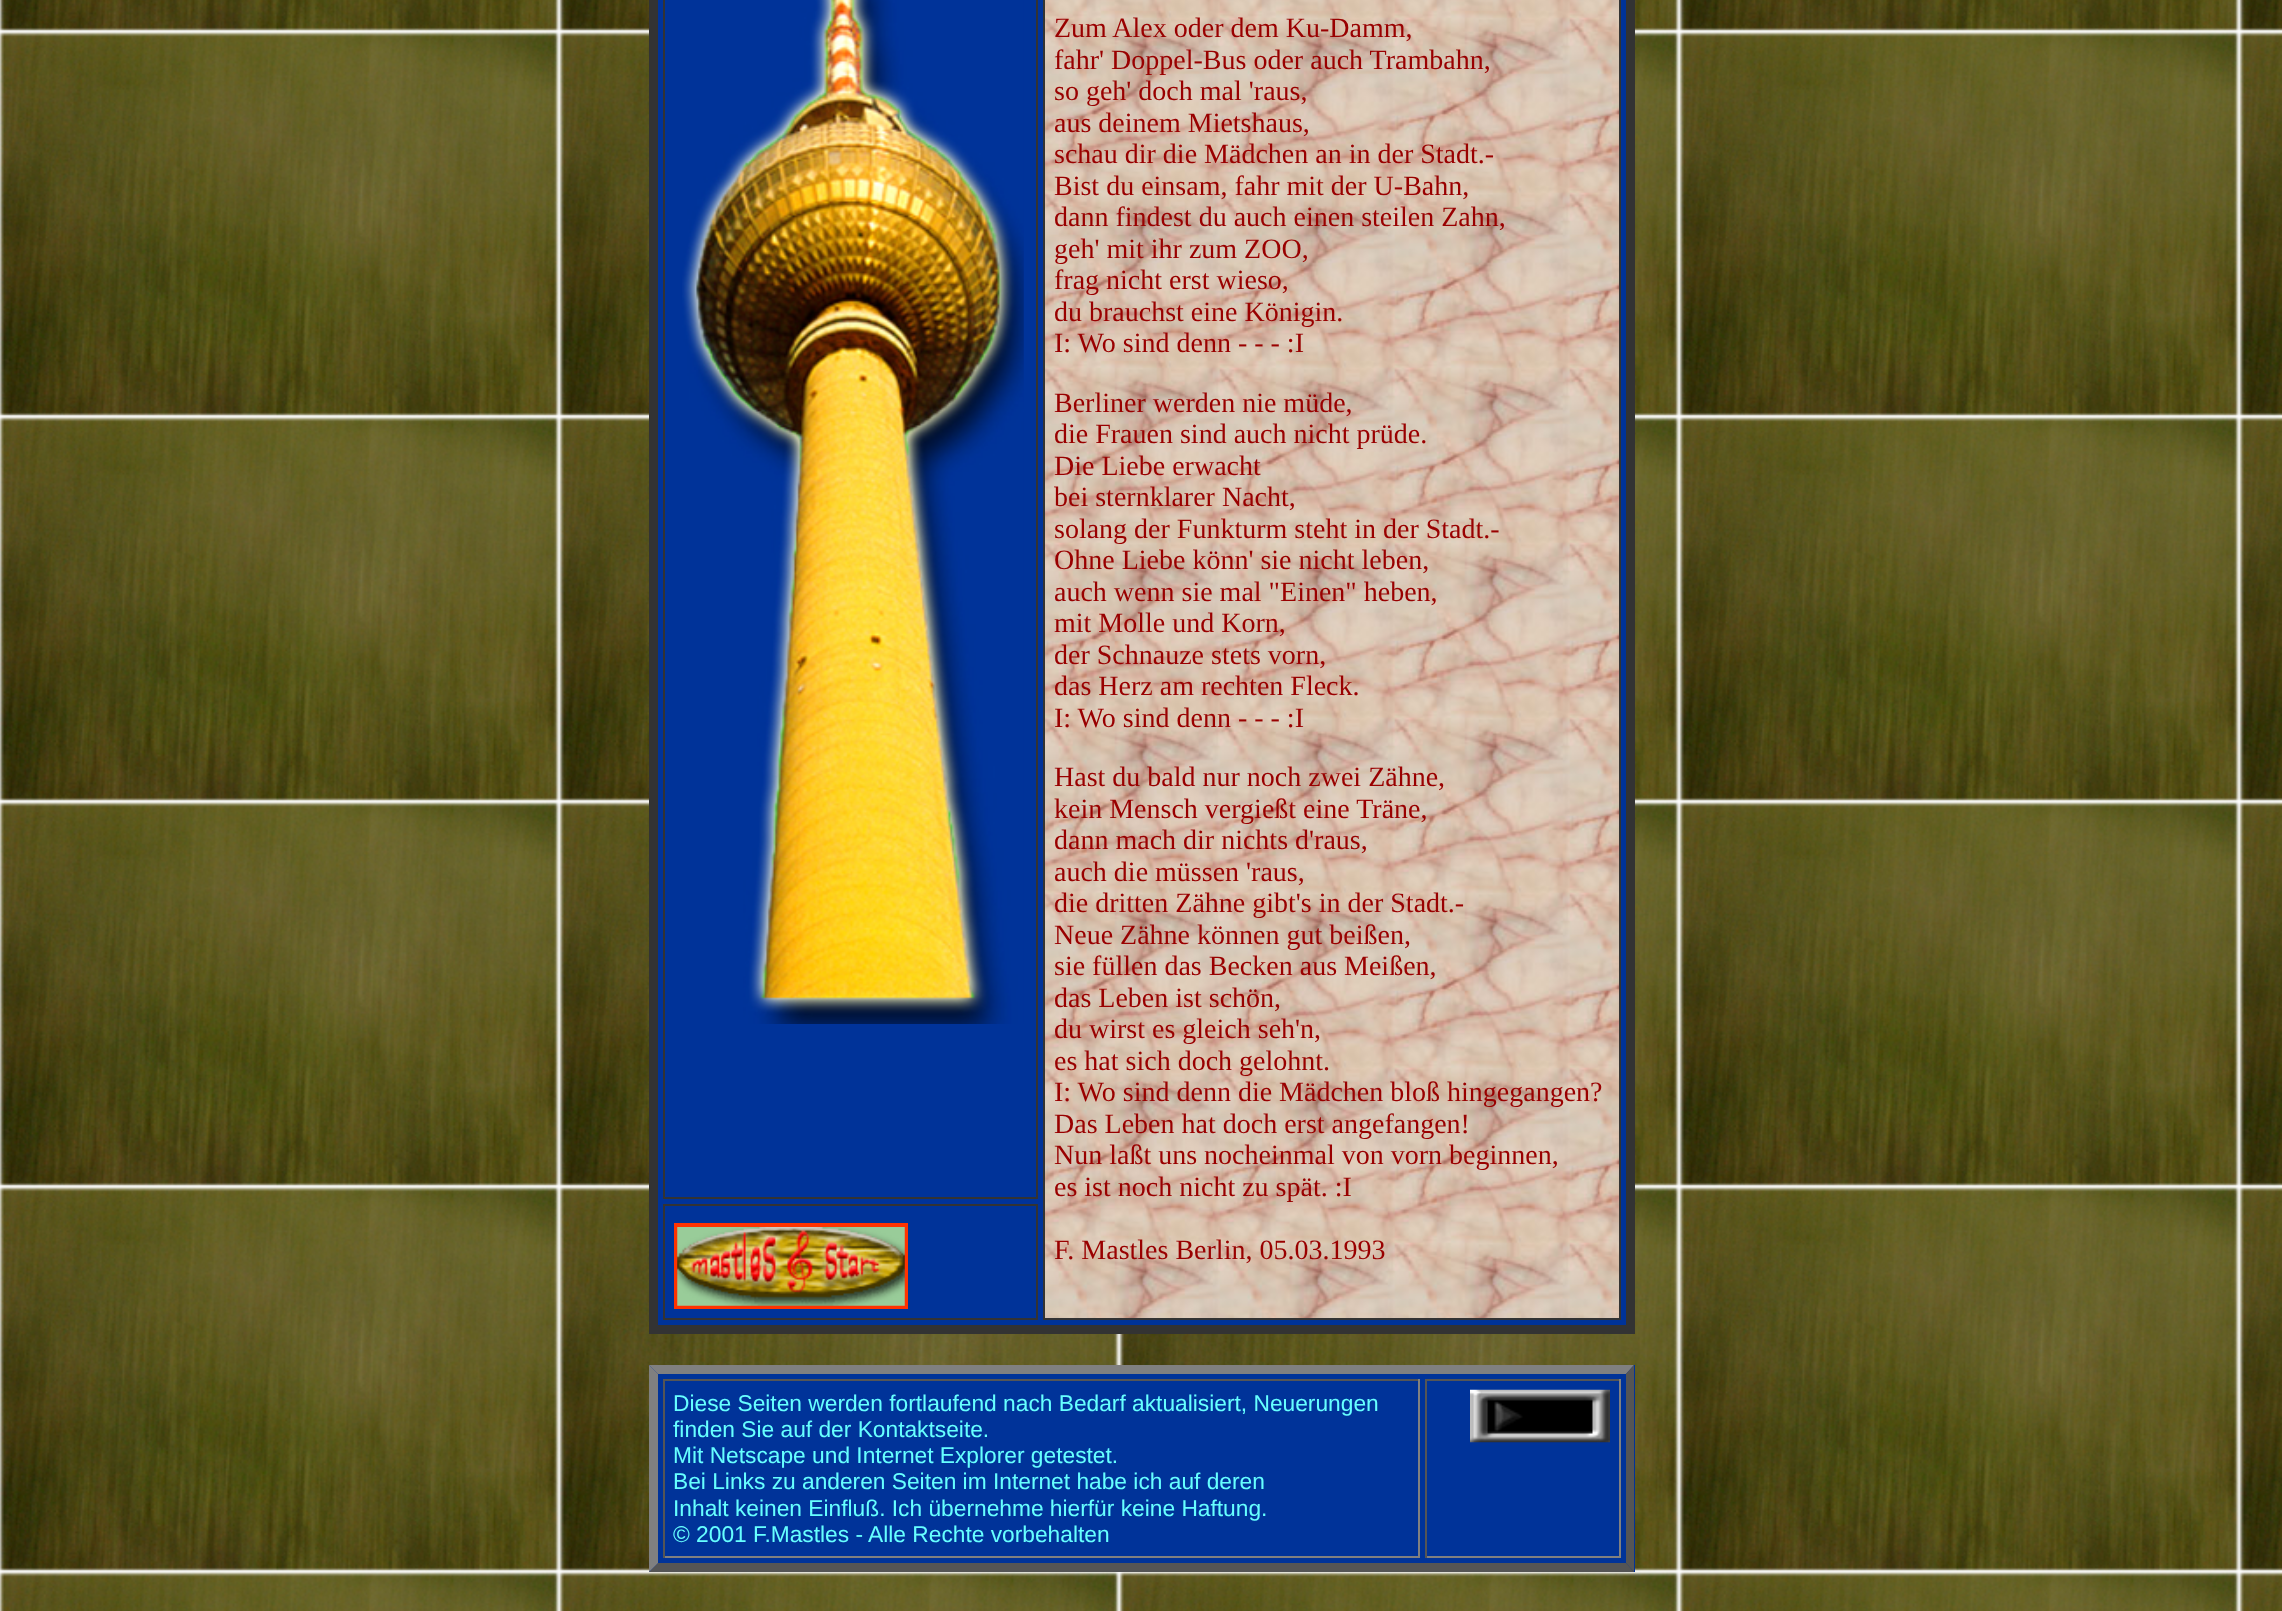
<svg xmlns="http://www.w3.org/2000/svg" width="2282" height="1611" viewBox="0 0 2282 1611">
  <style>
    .t1 { font: 28px Liberation Serif; fill: #900; }
    .t2 { font: 22.75px Liberation Sans; fill: #6ff; }
  </style>
  <rect width="100%" height="100%" fill="#fff"/>
  <image x="0" y="0" width="2282" height="1611" href="images/1.png"/>
  <rect x="653.5" y="-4.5" width="977" height="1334" fill="#039" stroke="#333" stroke-width="9"/>
  <rect x="664" y="1205" width="373" height="114" fill="none" stroke="#333" stroke-width="2"/>
  <rect x="676" y="1225" width="230" height="82" fill="none" stroke="#f30" stroke-width="4"/>
  <image x="677" y="1227" width="228" height="79" href="images/2.png"/>
  <rect x="664" y="-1" width="373" height="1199" fill="none" stroke="#333" stroke-width="2"/>
  <image x="682" y="0" width="342" height="1024" href="images/3.png"/>
  <image x="1045" y="0" width="574" height="1318" href="images/4.png"/>
  <rect x="1044" y="-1" width="576" height="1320" fill="none" stroke="#333" stroke-width="2"/>
  <text x="1054" y="37" class="t1">Zum Alex oder dem Ku-Damm,</text>
  <text x="1054" y="69" class="t1">fahr' Doppel-Bus oder auch Trambahn,</text>
  <text x="1054" y="100" class="t1">so geh' doch mal 'raus,</text>
  <text x="1054" y="132" class="t1">aus deinem Mietshaus,</text>
  <text x="1054" y="163" class="t1">schau dir die Mädchen an in der Stadt.-</text>
  <text x="1054" y="195" class="t1">Bist du einsam, fahr mit der U-Bahn,</text>
  <text x="1054" y="226" class="t1">dann findest du auch einen steilen Zahn,</text>
  <text x="1054" y="258" class="t1">geh' mit ihr zum ZOO,</text>
  <text x="1054" y="289" class="t1">frag nicht erst wieso,</text>
  <text x="1054" y="321" class="t1">du brauchst eine Königin.</text>
  <text x="1054" y="352" class="t1">I: Wo sind denn - - - :I</text>
  <text x="1054" y="412" class="t1">Berliner werden nie müde,</text>
  <text x="1054" y="443" class="t1">die Frauen sind auch nicht prüde.</text>
  <text x="1054" y="475" class="t1">Die Liebe erwacht</text>
  <text x="1054" y="506" class="t1">bei sternklarer Nacht,</text>
  <text x="1054" y="538" class="t1">solang der Funkturm steht in der Stadt.-</text>
  <text x="1054" y="569" class="t1">Ohne Liebe könn' sie nicht leben,</text>
  <text x="1054" y="601" class="t1">auch wenn sie mal "Einen" heben,</text>
  <text x="1054" y="632" class="t1">mit Molle und Korn,</text>
  <text x="1054" y="664" class="t1">der Schnauze stets vorn,</text>
  <text x="1054" y="695" class="t1">das Herz am rechten Fleck.</text>
  <text x="1054" y="727" class="t1">I: Wo sind denn - - - :I</text>
  <text x="1054" y="786" class="t1">Hast du bald nur noch zwei Zähne,</text>
  <text x="1054" y="818" class="t1">kein Mensch vergießt eine Träne,</text>
  <text x="1054" y="849" class="t1">dann mach dir nichts d'raus,</text>
  <text x="1054" y="881" class="t1">auch die müssen 'raus,</text>
  <text x="1054" y="912" class="t1">die dritten Zähne gibt's in der Stadt.-</text>
  <text x="1054" y="944" class="t1">Neue Zähne können gut beißen,</text>
  <text x="1054" y="975" class="t1">sie füllen das Becken aus Meißen,</text>
  <text x="1054" y="1007" class="t1">das Leben ist schön,</text>
  <text x="1054" y="1038" class="t1">du wirst es gleich seh'n,</text>
  <text x="1054" y="1070" class="t1">es hat sich doch gelohnt.</text>
  <text x="1054" y="1101" class="t1">I: Wo sind denn die Mädchen bloß hingegangen?</text>
  <text x="1054" y="1133" class="t1">Das Leben hat doch erst angefangen!</text>
  <text x="1054" y="1164" class="t1">Nun laßt uns nocheinmal von vorn beginnen,</text>
  <text x="1054" y="1196" class="t1">es ist noch nicht zu spät. :I</text>
  <text x="1054" y="1259" class="t1">F. Mastles Berlin, 05.03.1993</text>
  <rect x="649" y="1365" width="986" height="207" fill="#039"/>
  <path d="M649 1365H1634L1626 1374H658Z" fill="#808080"/>
  <path d="M1634 1365V1572L1626 1563V1374Z" fill="#555"/>
  <path d="M1634 1572H649L658 1563H1626Z" fill="#555"/>
  <path d="M649 1572V1365L658 1374V1563Z" fill="#808080"/>
  <rect x="663" y="1379" width="756" height="2" fill="#555"/>
  <rect x="1418" y="1379" width="2" height="179" fill="#808080"/>
  <rect x="663" y="1556" width="756" height="2" fill="#808080"/>
  <rect x="663" y="1379" width="2" height="179" fill="#555"/>
  <text x="673" y="1411" class="t2">Diese Seiten werden fortlaufend nach Bedarf aktualisiert, Neuerungen</text>
  <text x="673" y="1437" class="t2">finden Sie auf der Kontaktseite.</text>
  <text x="673" y="1463" class="t2">Mit Netscape und Internet Explorer getestet.</text>
  <text x="673" y="1489" class="t2">Bei Links zu anderen Seiten im Internet habe ich auf deren</text>
  <text x="673" y="1516" class="t2">Inhalt keinen Einfluß. Ich übernehme hierfür keine Haftung.</text>
  <text x="673" y="1542" class="t2">© 2001 F.Mastles - Alle Rechte vorbehalten</text>
  <rect x="1425" y="1379" width="196" height="2" fill="#555"/>
  <rect x="1619" y="1379" width="2" height="179" fill="#808080"/>
  <rect x="1425" y="1556" width="196" height="2" fill="#808080"/>
  <rect x="1425" y="1379" width="2" height="179" fill="#555"/>
  <image x="1470" y="1389" width="140" height="54" href="images/5.png"/>
</svg>
